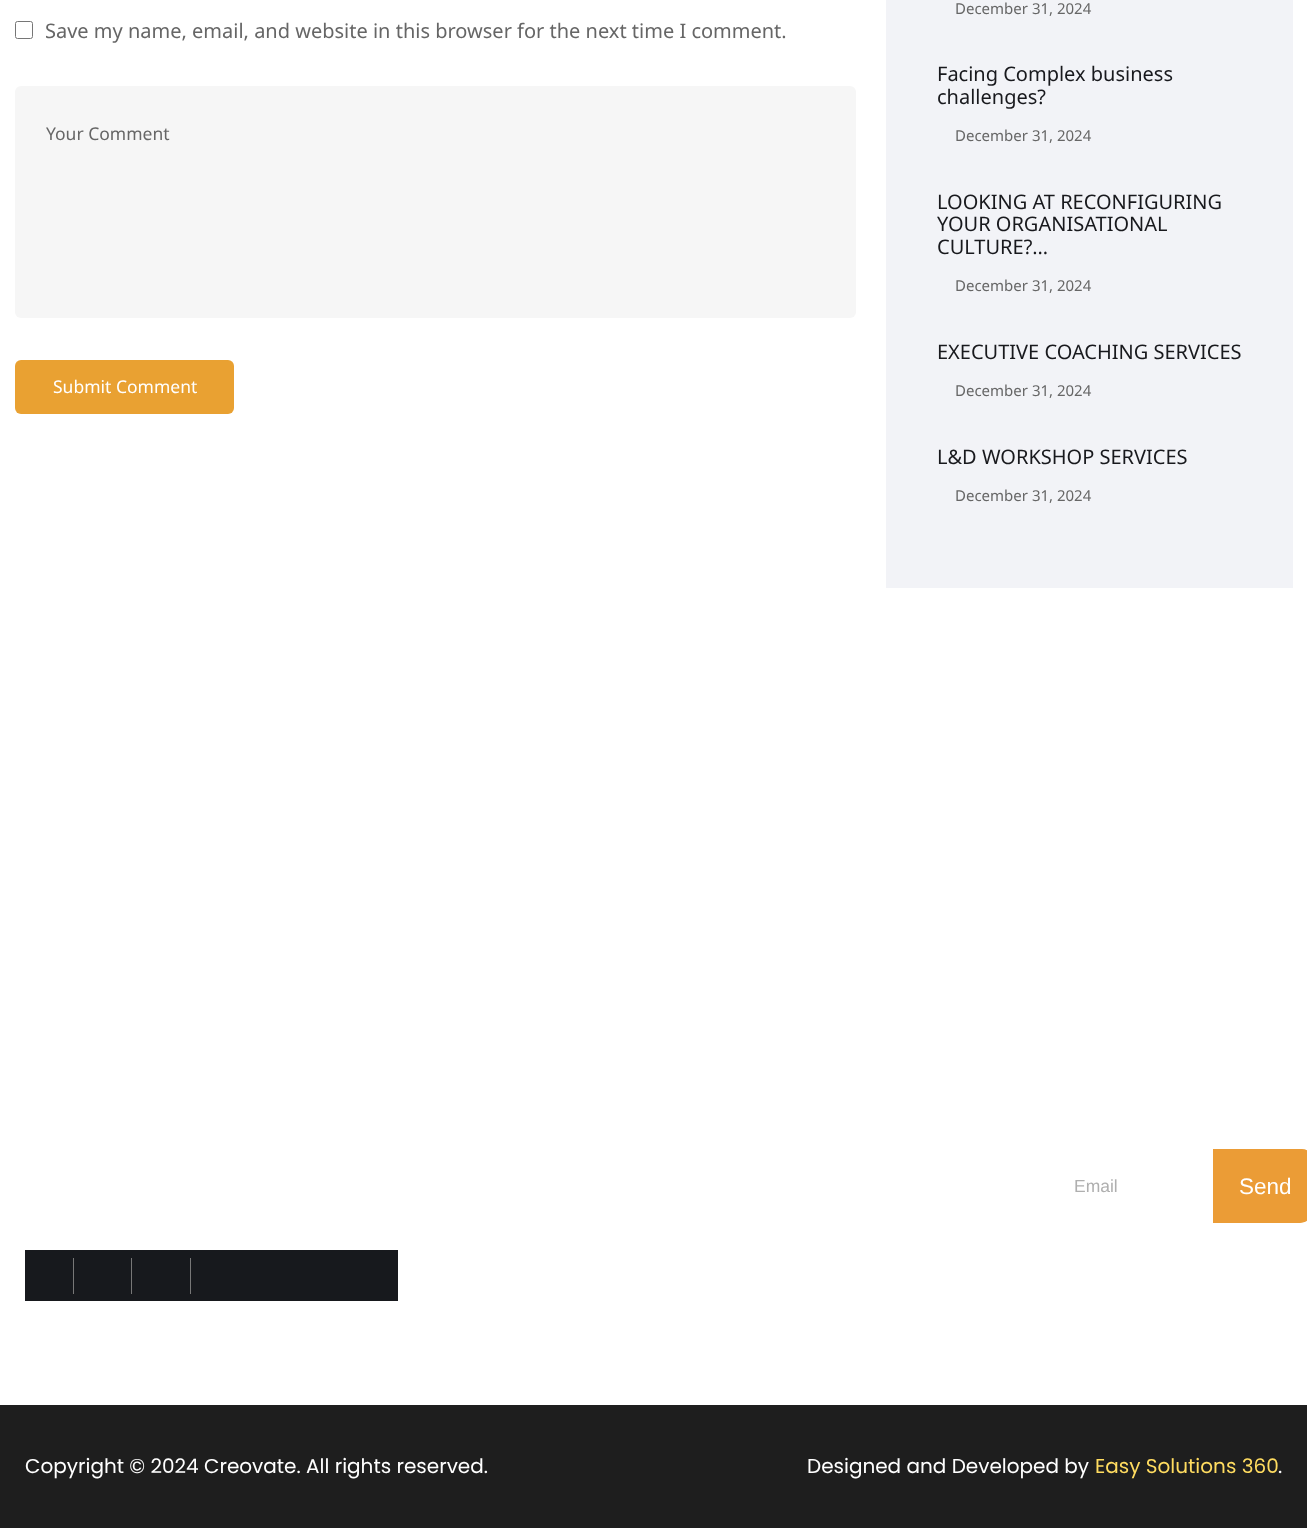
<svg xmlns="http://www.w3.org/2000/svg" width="1307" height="1528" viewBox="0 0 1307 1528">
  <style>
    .t1 { font: 20px Noto Sans; fill: #666; }
    .t2 { font: 17.5px Noto Sans; fill: #666; }
    .t3 { font: 17.5px Noto Sans; fill: #fff; }
    .t4 { font: 15px Noto Sans; fill: #666; }
    .t5 { font: 20px Noto Sans; fill: #18191d; }
    .t6 { font: 17.5px Liberation Sans; fill: #afafaf; }
    .t7 { font: 22.5px Liberation Sans; fill: #fff; }
    .t8 { font: 20px Poppins; fill: #fff; }
    .t9 { font: 20px Poppins; fill: #ffdc60; }
  </style>
  <rect width="100%" height="100%" fill="#fff"/>
  <rect x="15.5" y="21.5" width="17" height="17" rx="2" fill="none" stroke="#767676"/>
  <text x="45" y="38" class="t1">Save my name, email, and website in this browser for the next time I comment.</text>
  <rect x="15" y="86" width="841" height="232" rx="6" fill="#f6f6f6"/>
  <text x="46" y="140" class="t2">Your Comment</text>
  <rect x="15" y="360" width="219" height="54" rx="6" fill="#e9a132"/>
  <text x="53" y="393" class="t3">Submit Comment</text>
  <rect x="886" y="0" width="407" height="588" fill="#f2f3f7"/>
  <text x="955" y="14" class="t4">December 31, 2024</text>
  <text x="937" y="81" class="t5">Facing Complex business</text>
  <text x="937" y="104" class="t5">challenges?</text>
  <text x="955" y="141" class="t4">December 31, 2024</text>
  <text x="937" y="209" class="t5">LOOKING AT RECONFIGURING</text>
  <text x="937" y="231" class="t5">YOUR ORGANISATIONAL</text>
  <text x="937" y="254" class="t5">CULTURE?…</text>
  <text x="955" y="291" class="t4">December 31, 2024</text>
  <text x="937" y="359" class="t5">EXECUTIVE COACHING SERVICES</text>
  <text x="955" y="396" class="t4">December 31, 2024</text>
  <text x="937" y="464" class="t5">L&amp;D WORKSHOP SERVICES</text>
  <text x="955" y="501" class="t4">December 31, 2024</text>
  <text x="1074" y="1192" class="t6">Email</text>
  <path d="M1213 1149H1302C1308 1149 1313 1154 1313 1160V1210C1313 1217 1307 1223 1300 1223H1213Z" fill="#eb9c36"/>
  <text x="1239" y="1194" class="t7">Send</text>
  <rect x="25" y="1250" width="373" height="51" fill="#17191d"/>
  <rect x="73" y="1258" width="1" height="36" fill="#777"/>
  <rect x="131" y="1258" width="1" height="36" fill="#777"/>
  <rect x="190" y="1258" width="1" height="36" fill="#777"/>
  <rect x="0" y="1405" width="1307" height="123" fill="#1e1e1e"/>
  <text x="25" y="1473" class="t8">Copyright © 2024 Creovate. All rights reserved.</text>
  <text x="807" y="1473" class="t8">Designed and Developed by</text>
  <text x="1095" y="1473" class="t9">Easy Solutions 360</text>
  <text x="1278" y="1473" class="t8">.</text>
</svg>
